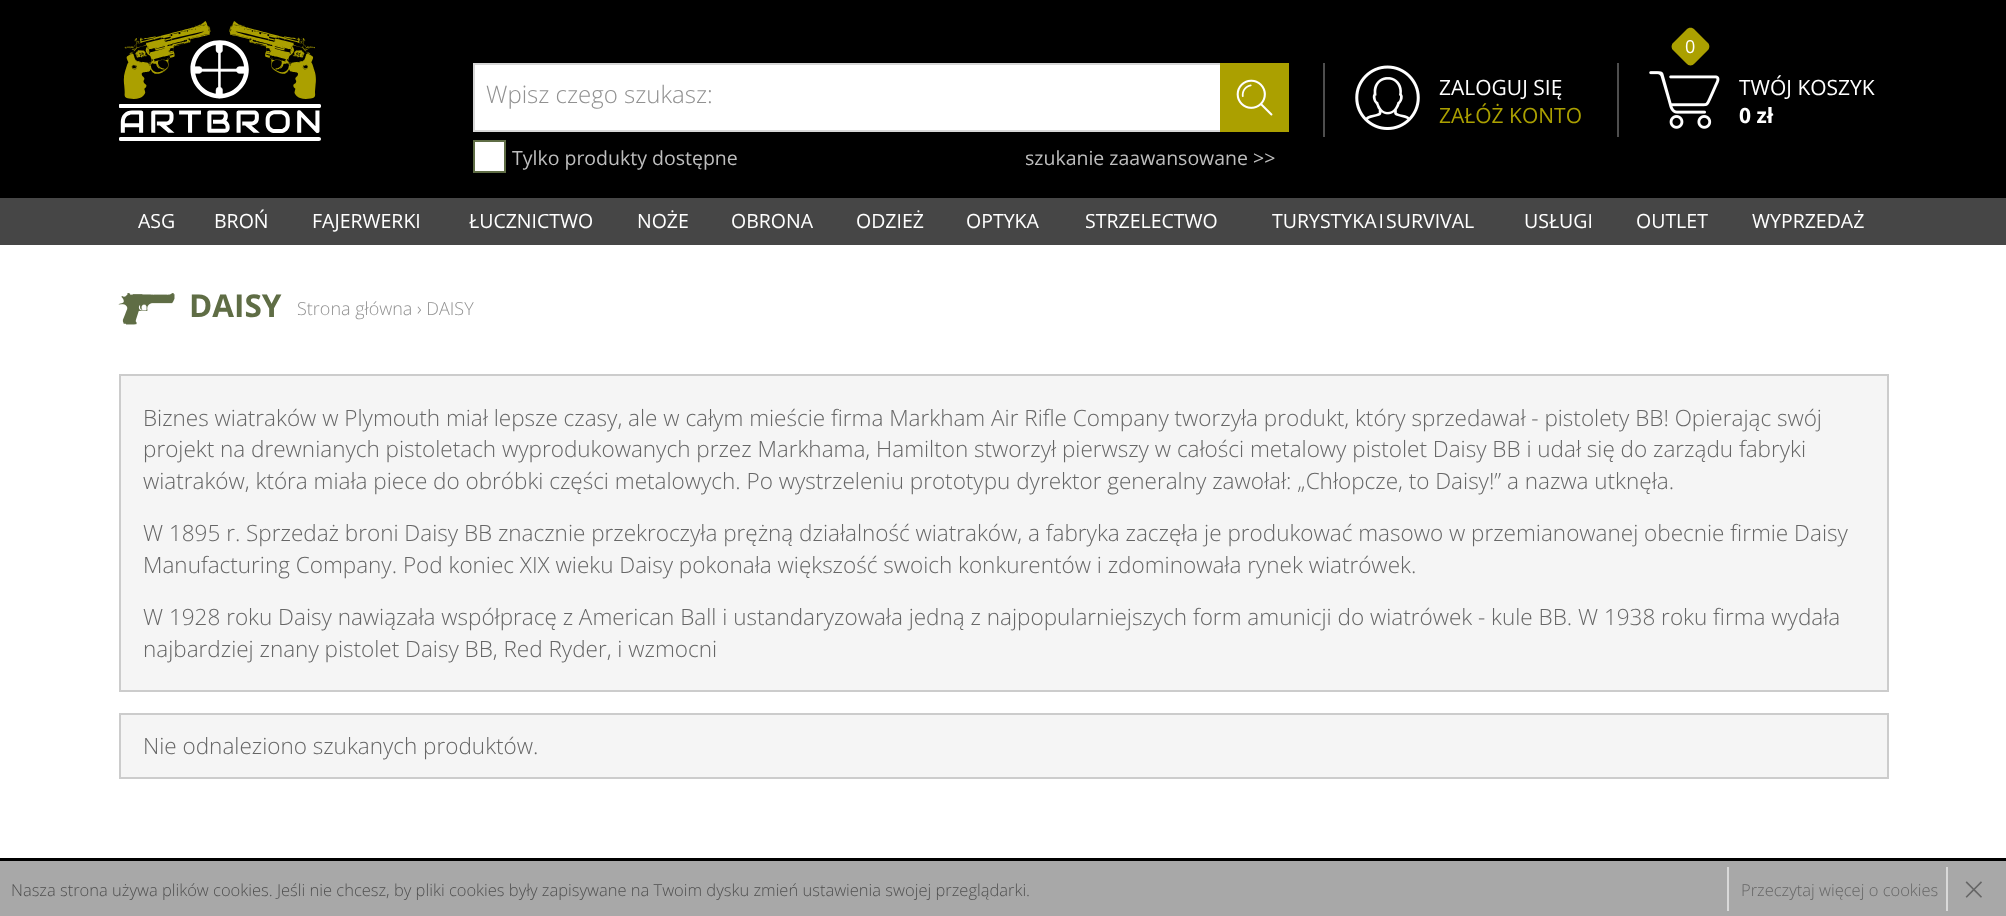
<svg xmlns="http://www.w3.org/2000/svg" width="2006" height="916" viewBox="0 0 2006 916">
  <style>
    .t1 { font: 300 24px Open Sans; fill: #919191; }
    .t2 { font: 19.5px Open Sans; fill: #bebebe; }
    .t3 { font: 21px Open Sans; fill: #fff; }
    .t4 { font: 21px Open Sans; fill: #aba000; }
    .t5 { font: 18px Open Sans; fill: #fff; }
    .t6 { font: bold 21px Open Sans; fill: #fff; }
    .t7 { font: 19.5px Open Sans; fill: #fff; }
    .t8 { font: bold 31.5px Open Sans; fill: #5f6d45; }
    .t9 { font: 300 18px Open Sans; fill: #919191; }
    .t10 { font: 300 22.5px Open Sans; fill: #666; }
    .t11 { font: 300 16.5px Open Sans; fill: #505050; }
    .t12 { font: 300 16.5px Open Sans; fill: #666; }
    .t13 { font: 300 38px Open Sans; fill: #666; }
  </style>
  <rect width="100%" height="100%" fill="#fff"/>
  <rect x="0" y="0" width="2006" height="198" fill="#000"/>
  <image x="119" y="21" width="202" height="120" href="images/1.png"/>
  <rect x="475" y="65" width="745" height="65" fill="#fff"/>
  <rect x="474" y="64" width="800" height="67" fill="none" stroke="#d7d7d7" stroke-width="2"/>
  <rect x="1221" y="64" width="67" height="67" fill="#aba000" stroke="#aba000" stroke-width="2"/>
  <image x="1236" y="79" width="37" height="37" href="images/2.png"/>
  <text x="486" y="103" class="t1">Wpisz czego szukasz:</text>
  <rect x="474" y="141" width="31" height="31" fill="#fff" stroke="#5f6d45" stroke-width="2"/>
  <text x="512" y="165" class="t2">Tylko produkty dostępne</text>
  <text x="1025" y="165" class="t2">szukanie zaawansowane &gt;&gt;</text>
  <rect x="1323" y="63" width="2" height="74" fill="#4e4e4e"/>
  <image x="1355" y="65" width="65" height="65" href="images/3.png"/>
  <text x="1439" y="95" class="t3">ZALOGUJ SIĘ</text>
  <text x="1439" y="123" class="t4">ZAŁÓŻ KONTO</text>
  <rect x="1617" y="63" width="2" height="74" fill="#4e4e4e"/>
  <image x="1649" y="71" width="71" height="58" href="images/4.png"/>
  <path d="M1694.5 29.5L1707.5 42.5C1710 44.5 1710 48.5 1707.5 50.5L1694.5 63.5C1692.5 66 1688.5 66 1686.5 63.5L1673.5 50.5C1671 48.5 1671 44.5 1673.5 42.5L1686.5 29.5C1688.5 27 1692.5 27 1694.5 29.5Z" fill="#aba000"/>
  <text x="1685" y="53" class="t5">0</text>
  <text x="1739" y="95" class="t3">TWÓJ KOSZYK</text>
  <text x="1739" y="123" class="t6">0 zł</text>
  <rect x="0" y="198" width="2006" height="47" fill="#464646"/>
  <text x="138" y="228" class="t7">ASG</text>
  <text x="214" y="228" class="t7">BROŃ</text>
  <text x="312" y="228" class="t7">FAJERWERKI</text>
  <text x="469" y="228" class="t7">ŁUCZNICTWO</text>
  <text x="637" y="228" class="t7">NOŻE</text>
  <text x="731" y="228" class="t7">OBRONA</text>
  <text x="856" y="228" class="t7">ODZIEŻ</text>
  <text x="966" y="228" class="t7">OPTYKA</text>
  <text x="1085" y="228" class="t7">STRZELECTWO</text>
  <text x="1272" y="228" word-spacing="-3" class="t7">TURYSTYKA I SURVIVAL</text>
  <text x="1524" y="228" class="t7">USŁUGI</text>
  <text x="1636" y="228" class="t7">OUTLET</text>
  <text x="1752" y="228" class="t7">WYPRZEDAŻ</text>
  <image x="118" y="293" width="57" height="32" href="images/5.png"/>
  <text x="189" y="317" class="t8">DAISY</text>
  <text x="297" y="315" class="t9">Strona główna › DAISY</text>
  <rect x="120" y="375" width="1768" height="316" fill="#f5f5f5" stroke="#ccc" stroke-width="2"/>
  <text x="143" y="426" class="t10">Biznes wiatraków w Plymouth miał lepsze czasy, ale w całym mieście firma Markham Air Rifle Company tworzyła produkt, który sprzedawał - pistolety BB! Opierając swój</text>
  <text x="143" y="457" class="t10">projekt na drewnianych pistoletach wyprodukowanych przez Markhama, Hamilton stworzył pierwszy w całości metalowy pistolet Daisy BB i udał się do zarządu fabryki</text>
  <text x="143" y="489" class="t10">wiatraków, która miała piece do obróbki części metalowych. Po wystrzeleniu prototypu dyrektor generalny zawołał: „Chłopcze, to Daisy!” a nazwa utknęła.</text>
  <text x="143" y="541" class="t10">W 1895 r. Sprzedaż broni Daisy BB znacznie przekroczyła prężną działalność wiatraków, a fabryka zaczęła je produkować masowo w przemianowanej obecnie firmie Daisy</text>
  <text x="143" y="573" class="t10">Manufacturing Company. Pod koniec XIX wieku Daisy pokonała większość swoich konkurentów i zdominowała rynek wiatrówek.</text>
  <text x="143" y="625" class="t10">W 1928 roku Daisy nawiązała współpracę z American Ball i ustandaryzowała jedną z najpopularniejszych form amunicji do wiatrówek - kule BB. W 1938 roku firma wydała</text>
  <text x="143" y="657" class="t10">najbardziej znany pistolet Daisy BB, Red Ryder, i wzmocni</text>
  <rect x="120" y="714" width="1768" height="64" fill="#f5f5f5" stroke="#ccc" stroke-width="2"/>
  <text x="143" y="754" class="t10">Nie odnaleziono szukanych produktów.</text>
  <rect x="0" y="858" width="2006" height="3" fill="#000"/>
  <rect x="0" y="861" width="2006" height="55" fill="#a8a8a8"/>
  <text x="11" y="896" class="t11">Nasza strona używa plików cookies. Jeśli nie chcesz, by pliki cookies były zapisywane na Twoim dysku zmień ustawienia swojej przeglądarki.</text>
  <rect x="1727" y="867" width="2" height="44" fill="#d9d9d9"/>
  <text x="1741" y="896" class="t12">Przeczytaj więcej o cookies</text>
  <rect x="1946" y="867" width="2" height="44" fill="#d9d9d9"/>
  <text x="1963" y="903" class="t13">×</text>
</svg>
